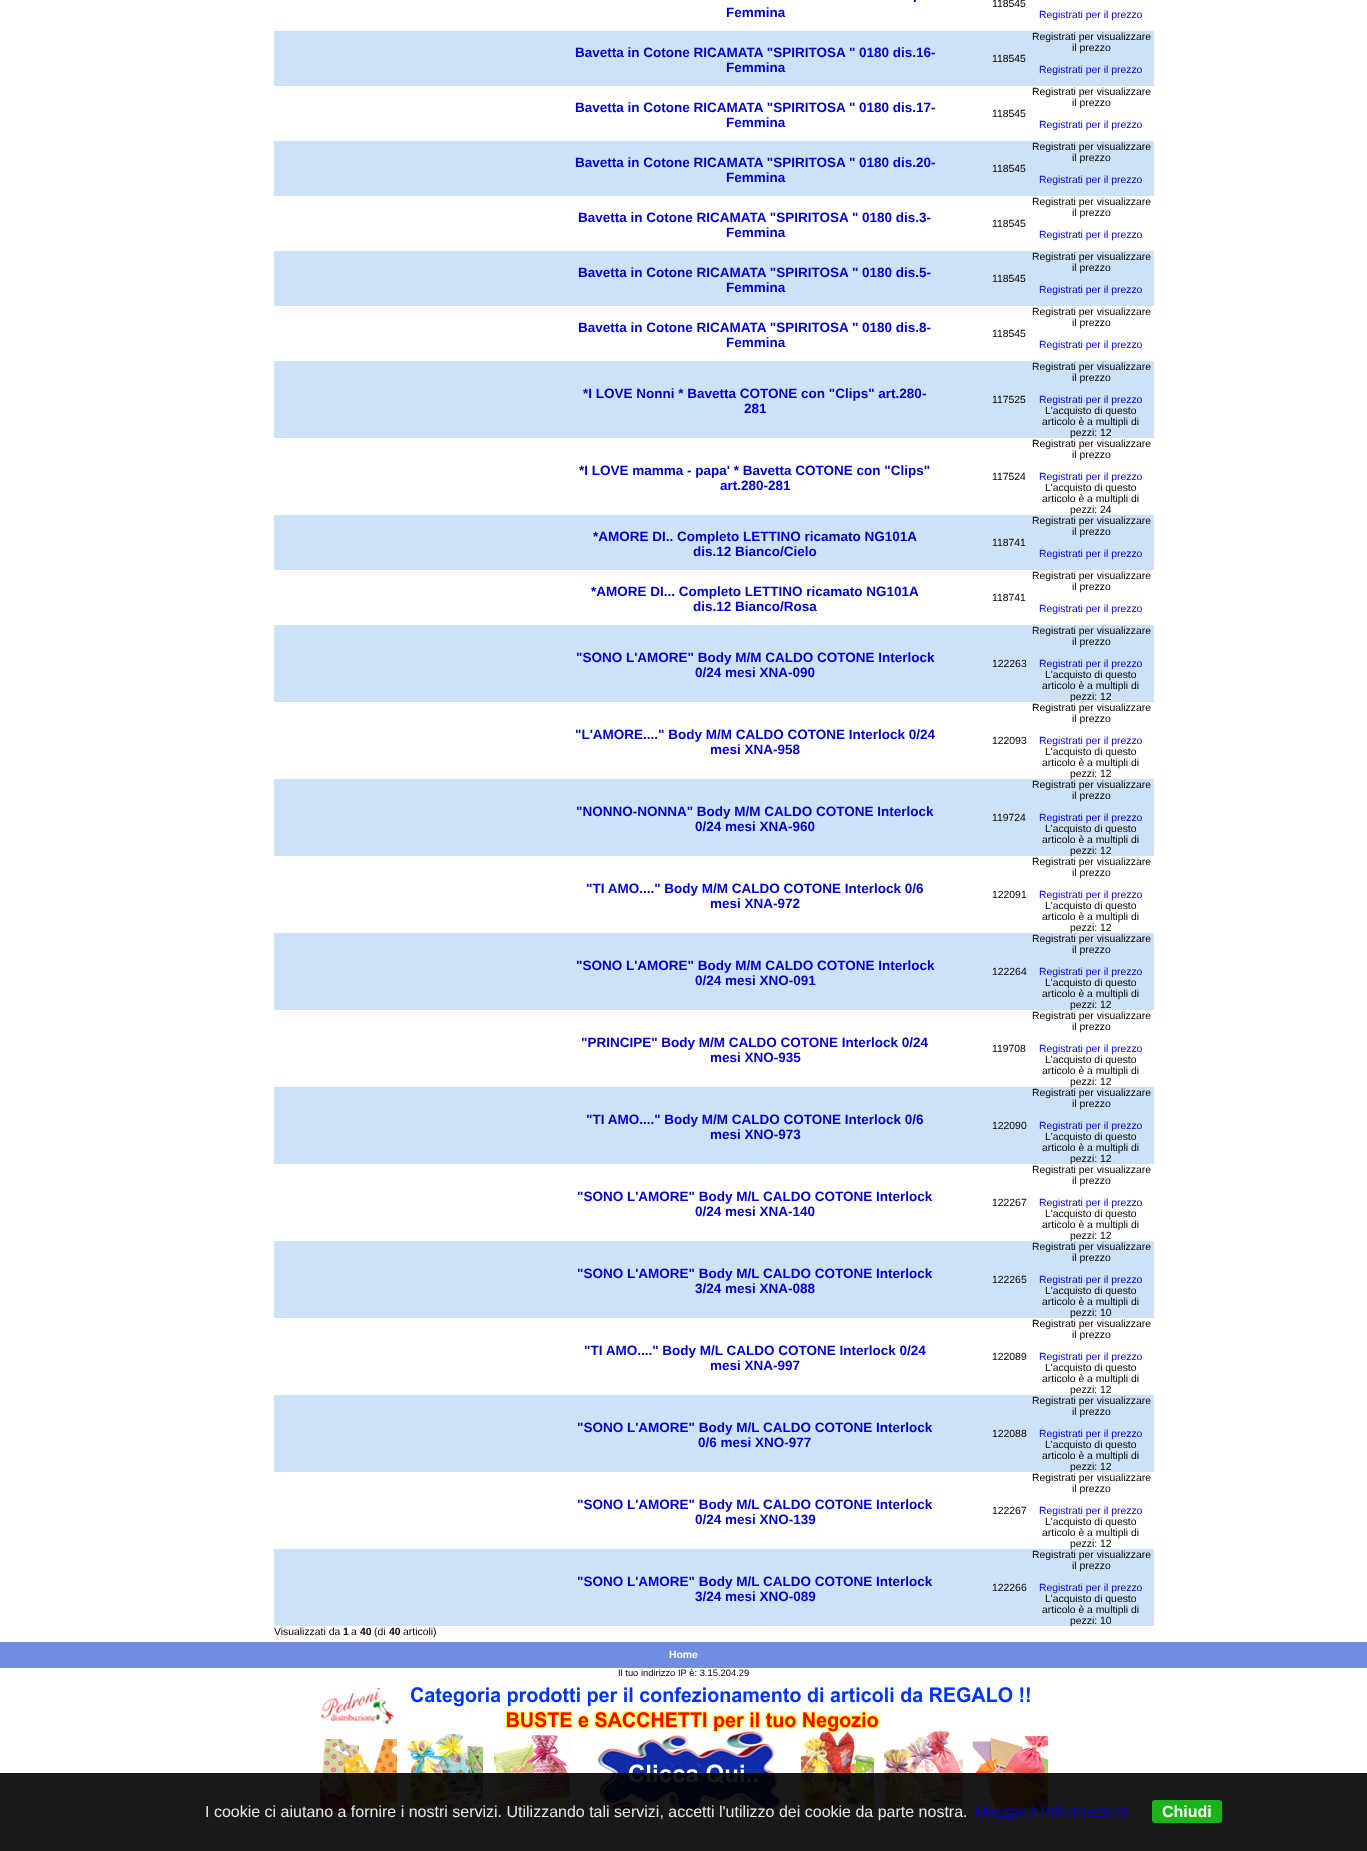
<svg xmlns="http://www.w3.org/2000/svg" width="1367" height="1851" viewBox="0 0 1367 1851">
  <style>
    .t1 { font: bold 13.5px Liberation Sans; fill: #00c; }
    .t2 { font: 10.4px Liberation Sans; fill: #000; }
    .t3 { font: 10.4px Liberation Sans; fill: #00c; }
    .t4 { font: bold 10.4px Liberation Sans; fill: #000; }
    .t5 { font: bold 10.4px Liberation Sans; fill: #fff; }
    .t6 { font: 9.4px Liberation Sans; fill: #000; }
    .t7 { font: 16px Liberation Sans; fill: #e8e8e8; }
    .t8 { font: 16px Liberation Sans; fill: #0302ba; }
    .t9 { font: bold 16px Liberation Sans; fill: #fff; }
  </style>
  <rect width="100%" height="100%" fill="#fff"/>
  <text x="913" y="2" class="t1">.</text>
  <text x="726" y="17" class="t1">Femmina</text>
  <text x="992" y="7" class="t2">118545</text>
  <text x="1039" y="18" class="t3">Registrati per il prezzo</text>
  <rect x="274" y="31" width="880" height="55" fill="#cde2f6"/>
  <text x="575" y="57" class="t1">Bavetta in Cotone RICAMATA "SPIRITOSA " 0180 dis.16-</text>
  <text x="726" y="72" class="t1">Femmina</text>
  <text x="992" y="62" class="t2">118545</text>
  <text x="1032" y="40" class="t2">Registrati per visualizzare</text>
  <text x="1072" y="51" class="t2">il prezzo</text>
  <text x="1039" y="73" class="t3">Registrati per il prezzo</text>
  <text x="575" y="112" class="t1">Bavetta in Cotone RICAMATA "SPIRITOSA " 0180 dis.17-</text>
  <text x="726" y="127" class="t1">Femmina</text>
  <text x="992" y="117" class="t2">118545</text>
  <text x="1032" y="95" class="t2">Registrati per visualizzare</text>
  <text x="1072" y="106" class="t2">il prezzo</text>
  <text x="1039" y="128" class="t3">Registrati per il prezzo</text>
  <rect x="274" y="141" width="880" height="55" fill="#cde2f6"/>
  <text x="575" y="167" class="t1">Bavetta in Cotone RICAMATA "SPIRITOSA " 0180 dis.20-</text>
  <text x="726" y="182" class="t1">Femmina</text>
  <text x="992" y="172" class="t2">118545</text>
  <text x="1032" y="150" class="t2">Registrati per visualizzare</text>
  <text x="1072" y="161" class="t2">il prezzo</text>
  <text x="1039" y="183" class="t3">Registrati per il prezzo</text>
  <text x="578" y="222" class="t1">Bavetta in Cotone RICAMATA "SPIRITOSA " 0180 dis.3-</text>
  <text x="726" y="237" class="t1">Femmina</text>
  <text x="992" y="227" class="t2">118545</text>
  <text x="1032" y="205" class="t2">Registrati per visualizzare</text>
  <text x="1072" y="216" class="t2">il prezzo</text>
  <text x="1039" y="238" class="t3">Registrati per il prezzo</text>
  <rect x="274" y="251" width="880" height="55" fill="#cde2f6"/>
  <text x="578" y="277" class="t1">Bavetta in Cotone RICAMATA "SPIRITOSA " 0180 dis.5-</text>
  <text x="726" y="292" class="t1">Femmina</text>
  <text x="992" y="282" class="t2">118545</text>
  <text x="1032" y="260" class="t2">Registrati per visualizzare</text>
  <text x="1072" y="271" class="t2">il prezzo</text>
  <text x="1039" y="293" class="t3">Registrati per il prezzo</text>
  <text x="578" y="332" class="t1">Bavetta in Cotone RICAMATA "SPIRITOSA " 0180 dis.8-</text>
  <text x="726" y="347" class="t1">Femmina</text>
  <text x="992" y="337" class="t2">118545</text>
  <text x="1032" y="315" class="t2">Registrati per visualizzare</text>
  <text x="1072" y="326" class="t2">il prezzo</text>
  <text x="1039" y="348" class="t3">Registrati per il prezzo</text>
  <rect x="274" y="361" width="880" height="77" fill="#cde2f6"/>
  <text x="583" y="398" class="t1">*I LOVE Nonni * Bavetta COTONE con "Clips" art.280-</text>
  <text x="744" y="413" class="t1">281</text>
  <text x="992" y="403" class="t2">117525</text>
  <text x="1032" y="370" class="t2">Registrati per visualizzare</text>
  <text x="1072" y="381" class="t2">il prezzo</text>
  <text x="1039" y="403" class="t3">Registrati per il prezzo</text>
  <text x="1045" y="414" class="t2">L'acquisto di questo</text>
  <text x="1042" y="425" class="t2">articolo è a multipli di</text>
  <text x="1070" y="436" class="t2">pezzi: 12</text>
  <text x="579" y="475" class="t1">*I LOVE mamma - papa' * Bavetta COTONE con "Clips"</text>
  <text x="720" y="490" class="t1">art.280-281</text>
  <text x="992" y="480" class="t2">117524</text>
  <text x="1032" y="447" class="t2">Registrati per visualizzare</text>
  <text x="1072" y="458" class="t2">il prezzo</text>
  <text x="1039" y="480" class="t3">Registrati per il prezzo</text>
  <text x="1045" y="491" class="t2">L'acquisto di questo</text>
  <text x="1042" y="502" class="t2">articolo è a multipli di</text>
  <rect x="274" y="515" width="880" height="55" fill="#cde2f6"/>
  <text x="1070" y="513" class="t2">pezzi: 24</text>
  <text x="593" y="541" class="t1">*AMORE DI.. Completo LETTINO ricamato NG101A</text>
  <text x="693" y="556" class="t1">dis.12 Bianco/Cielo</text>
  <text x="992" y="546" class="t2">118741</text>
  <text x="1032" y="524" class="t2">Registrati per visualizzare</text>
  <text x="1072" y="535" class="t2">il prezzo</text>
  <text x="1039" y="557" class="t3">Registrati per il prezzo</text>
  <text x="591" y="596" class="t1">*AMORE DI... Completo LETTINO ricamato NG101A</text>
  <text x="693" y="611" class="t1">dis.12 Bianco/Rosa</text>
  <text x="992" y="601" class="t2">118741</text>
  <text x="1032" y="579" class="t2">Registrati per visualizzare</text>
  <text x="1072" y="590" class="t2">il prezzo</text>
  <text x="1039" y="612" class="t3">Registrati per il prezzo</text>
  <rect x="274" y="625" width="880" height="77" fill="#cde2f6"/>
  <text x="576" y="662" class="t1">"SONO L'AMORE" Body M/M CALDO COTONE Interlock</text>
  <text x="695" y="677" class="t1">0/24 mesi XNA-090</text>
  <text x="992" y="667" class="t2">122263</text>
  <text x="1032" y="634" class="t2">Registrati per visualizzare</text>
  <text x="1072" y="645" class="t2">il prezzo</text>
  <text x="1039" y="667" class="t3">Registrati per il prezzo</text>
  <text x="1045" y="678" class="t2">L'acquisto di questo</text>
  <text x="1042" y="689" class="t2">articolo è a multipli di</text>
  <text x="1070" y="700" class="t2">pezzi: 12</text>
  <text x="575" y="739" class="t1">"L'AMORE...." Body M/M CALDO COTONE Interlock 0/24</text>
  <text x="710" y="754" class="t1">mesi XNA-958</text>
  <text x="992" y="744" class="t2">122093</text>
  <text x="1032" y="711" class="t2">Registrati per visualizzare</text>
  <text x="1072" y="722" class="t2">il prezzo</text>
  <text x="1039" y="744" class="t3">Registrati per il prezzo</text>
  <text x="1045" y="755" class="t2">L'acquisto di questo</text>
  <text x="1042" y="766" class="t2">articolo è a multipli di</text>
  <rect x="274" y="779" width="880" height="77" fill="#cde2f6"/>
  <text x="1070" y="777" class="t2">pezzi: 12</text>
  <text x="576" y="816" class="t1">"NONNO-NONNA" Body M/M CALDO COTONE Interlock</text>
  <text x="695" y="831" class="t1">0/24 mesi XNA-960</text>
  <text x="992" y="821" class="t2">119724</text>
  <text x="1032" y="788" class="t2">Registrati per visualizzare</text>
  <text x="1072" y="799" class="t2">il prezzo</text>
  <text x="1039" y="821" class="t3">Registrati per il prezzo</text>
  <text x="1045" y="832" class="t2">L'acquisto di questo</text>
  <text x="1042" y="843" class="t2">articolo è a multipli di</text>
  <text x="1070" y="854" class="t2">pezzi: 12</text>
  <text x="586" y="893" class="t1">"TI AMO...." Body M/M CALDO COTONE Interlock 0/6</text>
  <text x="710" y="908" class="t1">mesi XNA-972</text>
  <text x="992" y="898" class="t2">122091</text>
  <text x="1032" y="865" class="t2">Registrati per visualizzare</text>
  <text x="1072" y="876" class="t2">il prezzo</text>
  <text x="1039" y="898" class="t3">Registrati per il prezzo</text>
  <text x="1045" y="909" class="t2">L'acquisto di questo</text>
  <text x="1042" y="920" class="t2">articolo è a multipli di</text>
  <rect x="274" y="933" width="880" height="77" fill="#cde2f6"/>
  <text x="1070" y="931" class="t2">pezzi: 12</text>
  <text x="576" y="970" class="t1">"SONO L'AMORE" Body M/M CALDO COTONE Interlock</text>
  <text x="695" y="985" class="t1">0/24 mesi XNO-091</text>
  <text x="992" y="975" class="t2">122264</text>
  <text x="1032" y="942" class="t2">Registrati per visualizzare</text>
  <text x="1072" y="953" class="t2">il prezzo</text>
  <text x="1039" y="975" class="t3">Registrati per il prezzo</text>
  <text x="1045" y="986" class="t2">L'acquisto di questo</text>
  <text x="1042" y="997" class="t2">articolo è a multipli di</text>
  <text x="1070" y="1008" class="t2">pezzi: 12</text>
  <text x="581" y="1047" class="t1">"PRINCIPE" Body M/M CALDO COTONE Interlock 0/24</text>
  <text x="710" y="1062" class="t1">mesi XNO-935</text>
  <text x="992" y="1052" class="t2">119708</text>
  <text x="1032" y="1019" class="t2">Registrati per visualizzare</text>
  <text x="1072" y="1030" class="t2">il prezzo</text>
  <text x="1039" y="1052" class="t3">Registrati per il prezzo</text>
  <text x="1045" y="1063" class="t2">L'acquisto di questo</text>
  <text x="1042" y="1074" class="t2">articolo è a multipli di</text>
  <rect x="274" y="1087" width="880" height="77" fill="#cde2f6"/>
  <text x="1070" y="1085" class="t2">pezzi: 12</text>
  <text x="586" y="1124" class="t1">"TI AMO...." Body M/M CALDO COTONE Interlock 0/6</text>
  <text x="710" y="1139" class="t1">mesi XNO-973</text>
  <text x="992" y="1129" class="t2">122090</text>
  <text x="1032" y="1096" class="t2">Registrati per visualizzare</text>
  <text x="1072" y="1107" class="t2">il prezzo</text>
  <text x="1039" y="1129" class="t3">Registrati per il prezzo</text>
  <text x="1045" y="1140" class="t2">L'acquisto di questo</text>
  <text x="1042" y="1151" class="t2">articolo è a multipli di</text>
  <text x="1070" y="1162" class="t2">pezzi: 12</text>
  <text x="577" y="1201" class="t1">"SONO L'AMORE" Body M/L CALDO COTONE Interlock</text>
  <text x="695" y="1216" class="t1">0/24 mesi XNA-140</text>
  <text x="992" y="1206" class="t2">122267</text>
  <text x="1032" y="1173" class="t2">Registrati per visualizzare</text>
  <text x="1072" y="1184" class="t2">il prezzo</text>
  <text x="1039" y="1206" class="t3">Registrati per il prezzo</text>
  <text x="1045" y="1217" class="t2">L'acquisto di questo</text>
  <text x="1042" y="1228" class="t2">articolo è a multipli di</text>
  <rect x="274" y="1241" width="880" height="77" fill="#cde2f6"/>
  <text x="1070" y="1239" class="t2">pezzi: 12</text>
  <text x="577" y="1278" class="t1">"SONO L'AMORE" Body M/L CALDO COTONE Interlock</text>
  <text x="695" y="1293" class="t1">3/24 mesi XNA-088</text>
  <text x="992" y="1283" class="t2">122265</text>
  <text x="1032" y="1250" class="t2">Registrati per visualizzare</text>
  <text x="1072" y="1261" class="t2">il prezzo</text>
  <text x="1039" y="1283" class="t3">Registrati per il prezzo</text>
  <text x="1045" y="1294" class="t2">L'acquisto di questo</text>
  <text x="1042" y="1305" class="t2">articolo è a multipli di</text>
  <text x="1070" y="1316" class="t2">pezzi: 10</text>
  <text x="584" y="1355" class="t1">"TI AMO...." Body M/L CALDO COTONE Interlock 0/24</text>
  <text x="710" y="1370" class="t1">mesi XNA-997</text>
  <text x="992" y="1360" class="t2">122089</text>
  <text x="1032" y="1327" class="t2">Registrati per visualizzare</text>
  <text x="1072" y="1338" class="t2">il prezzo</text>
  <text x="1039" y="1360" class="t3">Registrati per il prezzo</text>
  <text x="1045" y="1371" class="t2">L'acquisto di questo</text>
  <text x="1042" y="1382" class="t2">articolo è a multipli di</text>
  <rect x="274" y="1395" width="880" height="77" fill="#cde2f6"/>
  <text x="1070" y="1393" class="t2">pezzi: 12</text>
  <text x="577" y="1432" class="t1">"SONO L'AMORE" Body M/L CALDO COTONE Interlock</text>
  <text x="698" y="1447" class="t1">0/6 mesi XNO-977</text>
  <text x="992" y="1437" class="t2">122088</text>
  <text x="1032" y="1404" class="t2">Registrati per visualizzare</text>
  <text x="1072" y="1415" class="t2">il prezzo</text>
  <text x="1039" y="1437" class="t3">Registrati per il prezzo</text>
  <text x="1045" y="1448" class="t2">L'acquisto di questo</text>
  <text x="1042" y="1459" class="t2">articolo è a multipli di</text>
  <text x="1070" y="1470" class="t2">pezzi: 12</text>
  <text x="577" y="1509" class="t1">"SONO L'AMORE" Body M/L CALDO COTONE Interlock</text>
  <text x="695" y="1524" class="t1">0/24 mesi XNO-139</text>
  <text x="992" y="1514" class="t2">122267</text>
  <text x="1032" y="1481" class="t2">Registrati per visualizzare</text>
  <text x="1072" y="1492" class="t2">il prezzo</text>
  <text x="1039" y="1514" class="t3">Registrati per il prezzo</text>
  <text x="1045" y="1525" class="t2">L'acquisto di questo</text>
  <text x="1042" y="1536" class="t2">articolo è a multipli di</text>
  <rect x="274" y="1549" width="880" height="77" fill="#cde2f6"/>
  <text x="1070" y="1547" class="t2">pezzi: 12</text>
  <text x="577" y="1586" class="t1">"SONO L'AMORE" Body M/L CALDO COTONE Interlock</text>
  <text x="695" y="1601" class="t1">3/24 mesi XNO-089</text>
  <text x="992" y="1591" class="t2">122266</text>
  <text x="1032" y="1558" class="t2">Registrati per visualizzare</text>
  <text x="1072" y="1569" class="t2">il prezzo</text>
  <text x="1039" y="1591" class="t3">Registrati per il prezzo</text>
  <text x="1045" y="1602" class="t2">L'acquisto di questo</text>
  <text x="1042" y="1613" class="t2">articolo è a multipli di</text>
  <text x="1070" y="1624" class="t2">pezzi: 10</text>
  <text x="274" y="1635" class="t2">Visualizzati da</text>
  <text x="343" y="1635" class="t4">1</text>
  <text x="351" y="1635" class="t2">a</text>
  <text x="360" y="1635" class="t4">40</text>
  <text x="374" y="1635" class="t2">(di</text>
  <text x="389" y="1635" class="t4">40</text>
  <text x="403" y="1635" class="t2">articoli)</text>
  <rect x="0" y="1642" width="1367" height="26" fill="#708de2"/>
  <text x="669" y="1658" class="t5">Home</text>
  <text x="618" y="1676" class="t6">Il tuo indirizzo IP è: 3.15.204.29</text>
  <image x="320" y="1687" width="728" height="126" href="images/1.png"/>
  <rect x="0" y="1773" width="1367" height="78" fill="#000000e6"/>
  <text x="205" y="1817" class="t7">I cookie ci aiutano a fornire i nostri servizi. Utilizzando tali servizi, accetti l'utilizzo dei cookie da parte nostra.</text>
  <text x="975" y="1817" class="t8">Maggiori Informazioni</text>
  <rect x="1152" y="1800" width="70" height="23" rx="3" fill="#1ab31a"/>
  <text x="1162" y="1817" class="t9">Chiudi</text>
</svg>
